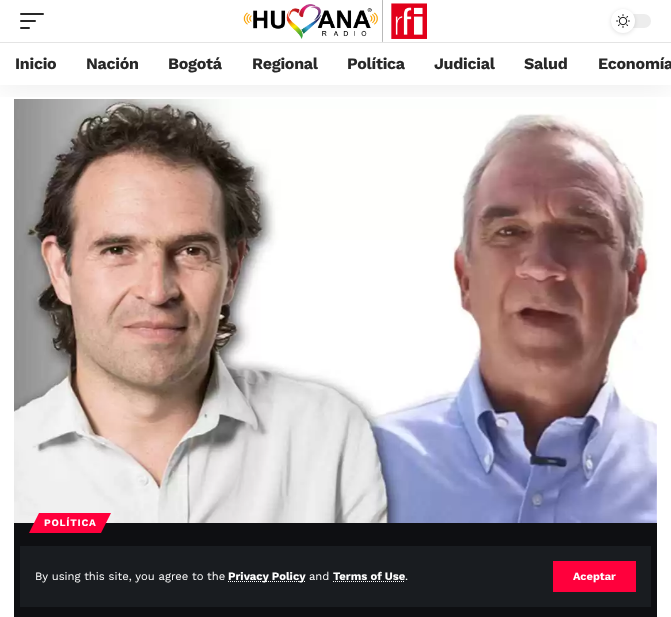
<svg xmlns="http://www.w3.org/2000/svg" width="671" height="617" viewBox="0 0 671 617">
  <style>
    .t1 { font: bold 16px Work Sans; letter-spacing: -0.25px; fill: #282828; }
    .t2 { font: 11.25px Work Sans; fill: #fff; }
    .t3 { font: bold 11.25px Work Sans; fill: #fff; }
    .t4 { font: bold 11px Work Sans; fill: #fff; }
    .t5 { font: bold 10px Work Sans; letter-spacing: 0.75px; fill: #fff; }
  </style>
  <defs>
    <clipPath id="clip1"><rect x="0" y="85" width="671" height="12"/></clipPath>
  </defs>
  <rect width="100%" height="100%" fill="#fff"/>
  <image x="14" y="99" width="643" height="424" href="images/3.png"/>
  <g clip-path="url(#clip1)">
    <rect x="0" y="4" width="671" height="85" fill="#00000012" filter="blur(15px)"/>
  </g>
  <rect x="20" y="13" width="24" height="2" rx="1" fill="#282828"/>
  <rect x="20" y="20" width="16" height="2" rx="1" fill="#282828"/>
  <rect x="20" y="27" width="10" height="2" rx="1" fill="#282828"/>
  <image x="243" y="0" width="184" height="42" href="images/1.png"/>
  <rect x="611" y="14" width="40" height="14" rx="7" fill="#ededed"/>
  <rect x="611" y="10" width="24" height="24" rx="12" fill="#0000001f" filter="blur(2px)"/>
  <circle cx="623" cy="21" r="12" fill="#fff"/>
  <image x="616" y="14" width="14" height="14" href="images/2.png"/>
  <rect x="0" y="42" width="671" height="1" fill="#e4e4e4"/>
  <text x="15" y="69" class="t1">Inicio</text>
  <text x="86" y="69" class="t1">Nación</text>
  <text x="168" y="69" class="t1">Bogotá</text>
  <text x="252" y="69" class="t1">Regional</text>
  <text x="347" y="69" class="t1">Política</text>
  <text x="434" y="69" class="t1">Judicial</text>
  <text x="524" y="69" class="t1">Salud</text>
  <text x="598" y="69" class="t1">Economía</text>
  <rect x="14" y="523" width="643" height="94" fill="#0e0f12"/>
  <rect x="20" y="546" width="631" height="61" fill="#191c20"/>
  <text x="35" y="580" class="t2">By using this site, you agree to the</text>
  <path d="M228 581.5H305" fill="none" stroke="#fff" stroke-dasharray="1 1"/>
  <text x="228" y="580" class="t3">Privacy Policy</text>
  <text x="309" y="580" class="t2">and</text>
  <text x="333" y="580" class="t3">Terms of Use</text>
  <path d="M333 581.5H405" fill="none" stroke="#fff" stroke-dasharray="1 1"/>
  <text x="405" y="580" class="t2">.</text>
  <rect x="553" y="561" width="83" height="31" fill="#ff003c"/>
  <text x="573" y="580" class="t4">Aceptar</text>
  <path d="M39 513H111L101 533H29Z" fill="#ff003c"/>
  <text x="44" y="526" class="t5">POLÍTICA</text>
</svg>
